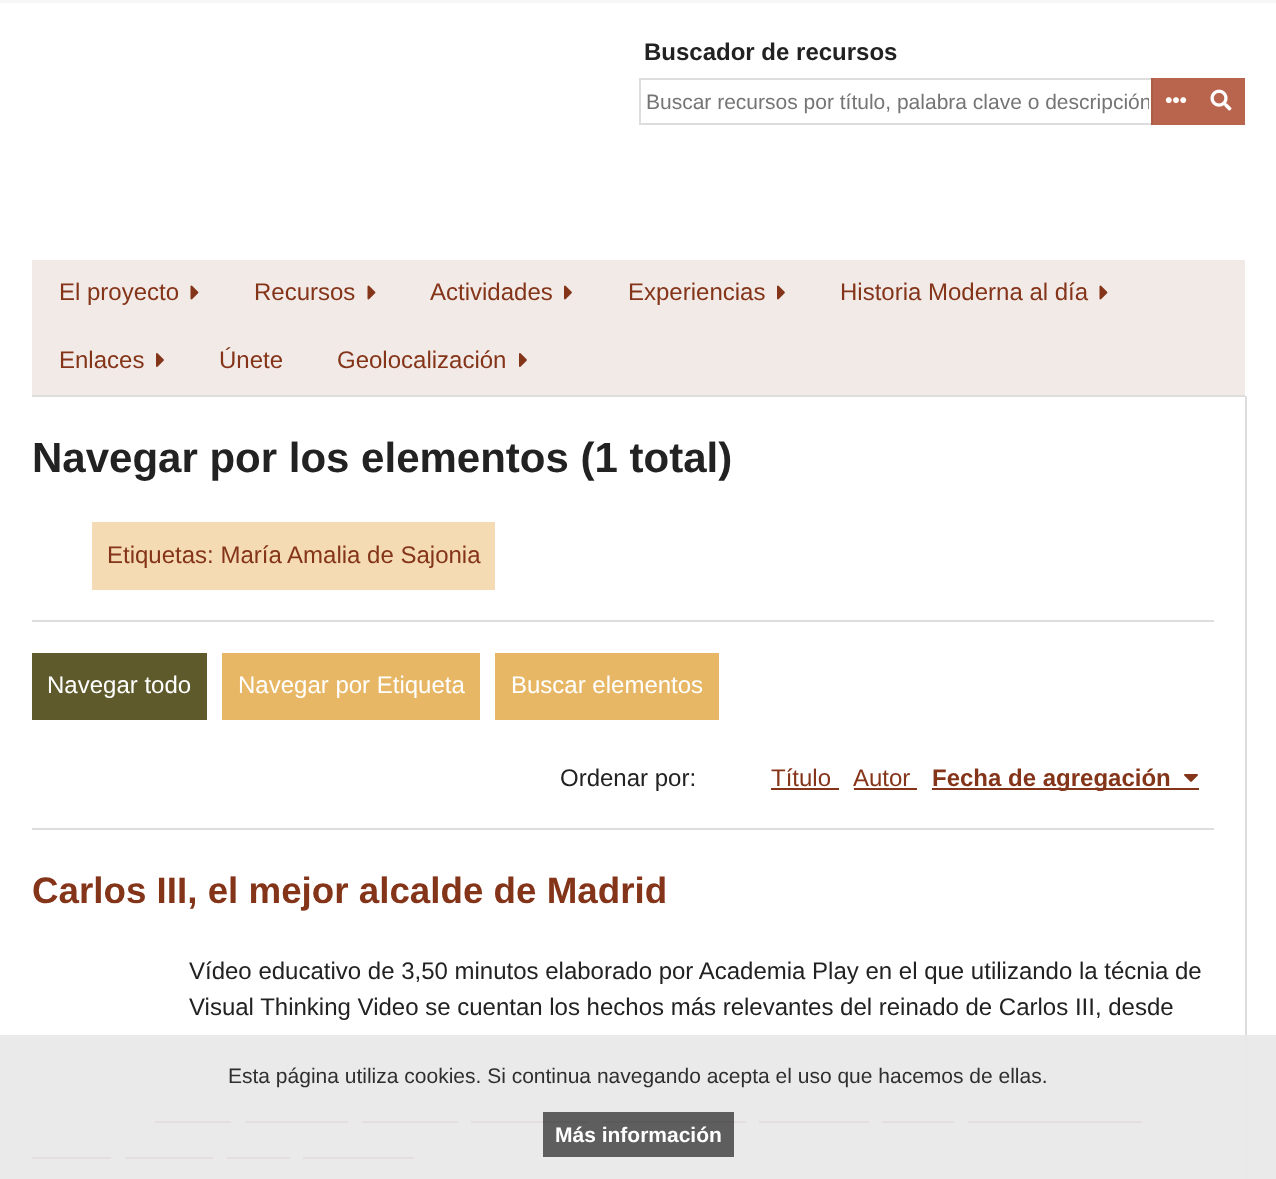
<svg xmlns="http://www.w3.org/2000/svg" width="1276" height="1179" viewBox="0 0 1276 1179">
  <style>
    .t1 { font: bold 24px Liberation Sans; fill: #222; }
    .t2 { font: 21px Liberation Sans; fill: #757575; }
    .t3 { font: 24px Liberation Sans; fill: #843418; }
    .t4 { font: bold 42px Liberation Sans; fill: #222; }
    .t5 { font: 24px Liberation Sans; fill: #fff; }
    .t6 { font: 24px Liberation Sans; fill: #222; }
    .t7 { font: bold 24px Liberation Sans; fill: #843418; }
    .t8 { font: bold 36.75px Liberation Sans; fill: #843418; }
    .t9 { font: 21px Liberation Sans; fill: #2f2f2f; }
    .t10 { font: bold 21px Liberation Sans; fill: #fff; }
  </style>
  <defs>
    <clipPath id="clip1"><rect x="647" y="90" width="502" height="24"/></clipPath>
  </defs>
  <rect width="100%" height="100%" fill="#f6f6f6"/>
  <rect x="0" y="3" width="1276" height="1176" fill="#fff"/>
  <text x="644" y="60" class="t1">Buscador de recursos</text>
  <rect x="640" y="79" width="604" height="45" fill="none" stroke="#ddd" stroke-width="2"/>
  <rect x="1153" y="78" width="92" height="47" fill="#b9654d"/>
  <rect x="1151" y="78" width="2" height="47" fill="#aa5d47"/>
  <image x="1165" y="97" width="22" height="7" href="images/1.png"/>
  <g clip-path="url(#clip1)">
    <text x="646" y="109" class="t2">Buscar recursos por título, palabra clave o descripción</text>
  </g>
  <image x="1210" y="89" width="22" height="22" href="images/2.png"/>
  <rect x="32" y="260" width="1213" height="135" fill="#f2eae7"/>
  <text x="59" y="300" class="t3">El proyecto</text>
  <image x="190" y="285" width="9" height="15" href="images/3.png"/>
  <text x="254" y="300" class="t3">Recursos</text>
  <image x="367" y="285" width="9" height="15" href="images/3.png"/>
  <text x="430" y="300" class="t3">Actividades</text>
  <image x="564" y="285" width="8" height="15" href="images/4.png"/>
  <text x="628" y="300" class="t3">Experiencias</text>
  <image x="777" y="285" width="8" height="15" href="images/4.png"/>
  <text x="840" y="300" class="t3">Historia Moderna al día</text>
  <image x="1099" y="285" width="9" height="15" href="images/3.png"/>
  <text x="59" y="368" class="t3">Enlaces</text>
  <image x="156" y="353" width="8" height="14" href="images/5.png"/>
  <text x="219" y="368" class="t3">Únete</text>
  <text x="337" y="368" class="t3">Geolocalización</text>
  <image x="519" y="353" width="8" height="14" href="images/5.png"/>
  <rect x="32" y="395" width="1213" height="2" fill="#ddd"/>
  <text x="32" y="472" class="t4">Navegar por los elementos (1 total)</text>
  <rect x="1245" y="396" width="2" height="783" fill="#ddd"/>
  <rect x="32" y="620" width="1182" height="2" fill="#ddd"/>
  <rect x="92" y="522" width="403" height="68" fill="#f4dbb3"/>
  <text x="107" y="563" class="t3">Etiquetas: María Amalia de Sajonia</text>
  <rect x="32" y="653" width="175" height="67" fill="#5e5a2c"/>
  <text x="47" y="693" class="t5">Navegar todo</text>
  <rect x="222" y="653" width="258" height="67" fill="#e7b765"/>
  <text x="238" y="693" class="t5">Navegar por Etiqueta</text>
  <rect x="495" y="653" width="224" height="67" fill="#e7b765"/>
  <text x="511" y="693" class="t5">Buscar elementos</text>
  <text x="560" y="786" class="t6">Ordenar por:</text>
  <text x="771" y="786" class="t3">Título</text>
  <rect x="771" y="788" width="68" height="2" fill="#843418"/>
  <text x="853" y="786" class="t3">Autor</text>
  <rect x="854" y="788" width="63" height="2" fill="#843418"/>
  <rect x="932" y="788" width="267" height="2" fill="#843418"/>
  <text x="932" y="786" class="t7">Fecha de agregación</text>
  <image x="1184" y="774" width="14" height="8" href="images/6.png"/>
  <rect x="32" y="828" width="1182" height="2" fill="#ddd"/>
  <text x="32" y="903" class="t8">Carlos III, el mejor alcalde de Madrid</text>
  <text x="189" y="979" class="t6">Vídeo educativo de 3,50 minutos elaborado por Academia Play en el que utilizando la técnia de</text>
  <text x="189" y="1015" class="t6">Visual Thinking Video se cuentan los hechos más relevantes del reinado de Carlos III, desde</text>
  <rect x="155" y="1121" width="76" height="2" fill="#843418"/>
  <rect x="245" y="1121" width="103" height="2" fill="#843418"/>
  <rect x="362" y="1121" width="96" height="2" fill="#843418"/>
  <rect x="471" y="1121" width="117" height="2" fill="#843418"/>
  <rect x="602" y="1121" width="144" height="2" fill="#843418"/>
  <rect x="759" y="1121" width="110" height="2" fill="#843418"/>
  <rect x="882" y="1121" width="72" height="2" fill="#843418"/>
  <rect x="968" y="1121" width="174" height="2" fill="#843418"/>
  <rect x="32" y="1157" width="79" height="2" fill="#843418"/>
  <rect x="125" y="1157" width="88" height="2" fill="#843418"/>
  <rect x="227" y="1157" width="63" height="2" fill="#843418"/>
  <rect x="303" y="1157" width="111" height="2" fill="#843418"/>
  <rect x="0" y="1035" width="1276" height="144" fill="#e9e9e9f2"/>
  <text x="228" y="1083" class="t9">Esta página utiliza cookies. Si continua navegando acepta el uso que hacemos de ellas.</text>
  <rect x="543" y="1112" width="191" height="45" fill="#00000099"/>
  <text x="555" y="1142" class="t10">Más información</text>
</svg>
